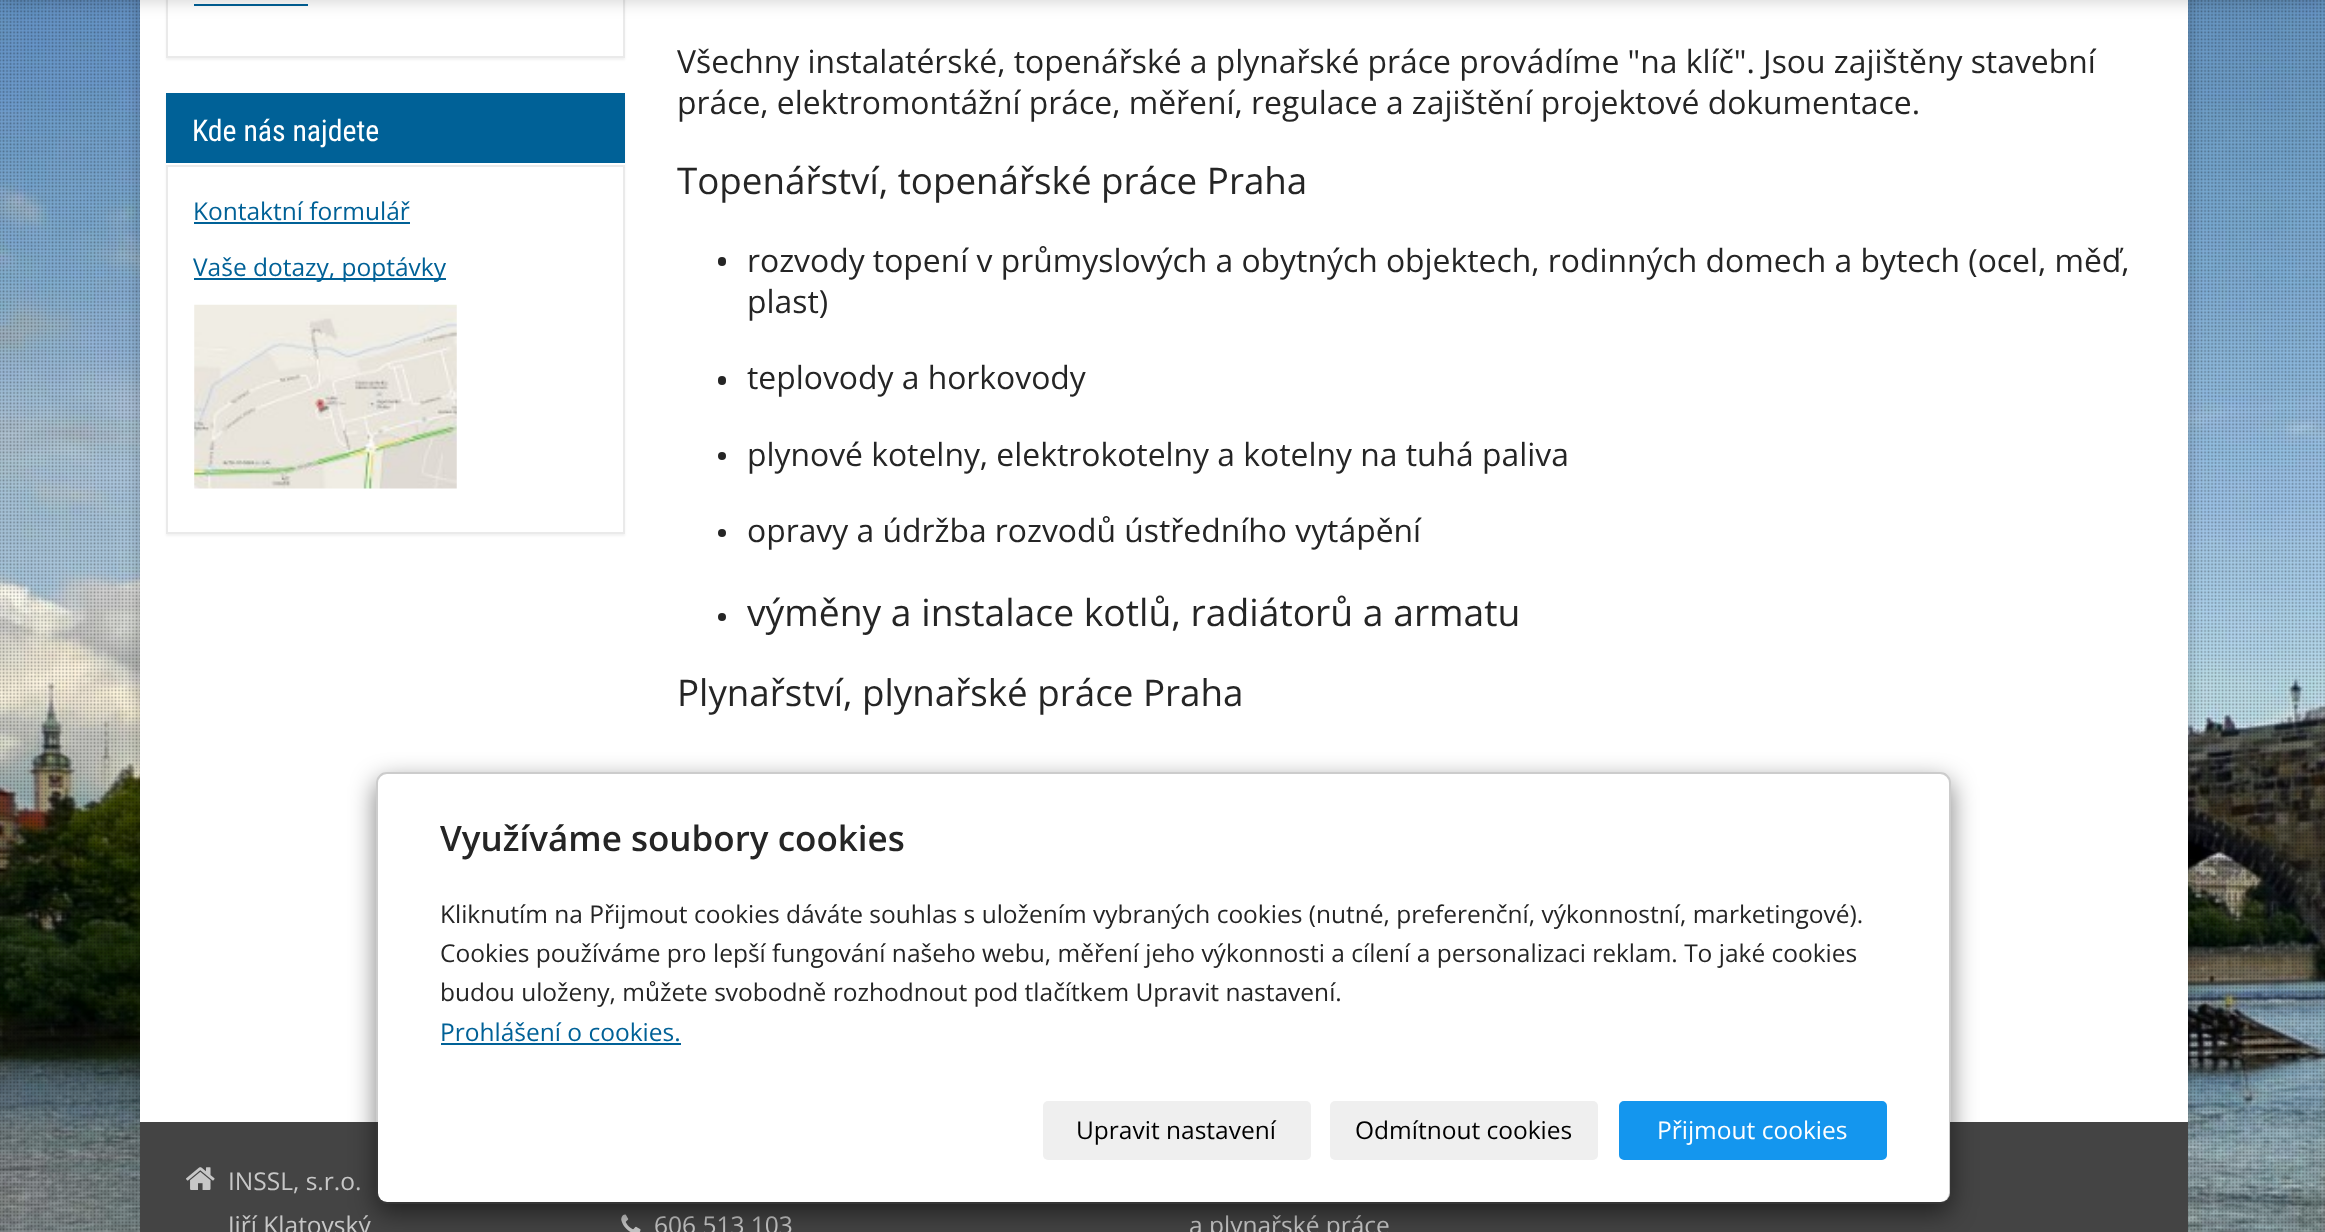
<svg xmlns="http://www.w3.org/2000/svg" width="2325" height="1232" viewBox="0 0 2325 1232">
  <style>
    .t1 { font: 29.75px Roboto Condensed; fill: #fff; }
    .t2 { font: 24.5px Open Sans; fill: #006197; }
    .t3 { font: 31.85px Open Sans; fill: #252525; }
    .t4 { font: 36.75px Open Sans; fill: #252525; }
    .t5 { font: 37.25px Open Sans; fill: #252525; }
    .t6 { font: 24.5px Open Sans; fill: #c7c7c7; }
    .t7 { font: 600 35px Open Sans; fill: #252525; }
    .t8 { font: 24.5px Open Sans; fill: #252525; }
    .t9 { font: 24.5px Open Sans; fill: #000; }
    .t10 { font: 24.5px Open Sans; fill: #fff; }
  </style>
  <defs>
    <clipPath id="clip1"><path d="M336 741H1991V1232H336ZM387 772H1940C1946 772 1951 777 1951 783V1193C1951 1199 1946 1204 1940 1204H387C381 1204 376 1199 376 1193V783C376 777 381 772 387 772Z" clip-rule="evenodd"/></clipPath>
  </defs>
  <rect width="100%" height="100%" fill="#fff"/>
  <image x="0" y="0" width="2325" height="1232" href="images/1.png"/>
  <image x="0" y="0" width="2325" height="1232" href="images/2.png"/>
  <rect x="135" y="-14" width="2058" height="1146" fill="#0000001a" filter="blur(4.5px)"/>
  <rect x="140" y="0" width="2048" height="1122" fill="#fff"/>
  <rect x="166" y="-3" width="459" height="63" fill="#0000000d" filter="blur(1px)"/>
  <rect x="167" y="-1" width="457" height="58" fill="#fff" stroke="#eaeaea" stroke-width="2"/>
  <rect x="194" y="4" width="114" height="2" fill="#006197"/>
  <rect x="0" y="-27" width="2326" height="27" fill="#00000033" filter="blur(9px)"/>
  <rect x="166" y="95" width="459" height="441" fill="#0000000d" filter="blur(1px)"/>
  <rect x="166" y="93" width="459" height="70" fill="#006197"/>
  <rect x="166" y="163" width="459" height="2" fill="#fff"/>
  <text x="192" y="141" class="t1">Kde nás najdete</text>
  <rect x="167" y="166" width="457" height="367" fill="#fff" stroke="#eaeaea" stroke-width="2"/>
  <text x="193" y="220" class="t2">Kontaktní formulář</text>
  <rect x="194" y="222" width="216" height="2" fill="#006197"/>
  <rect x="194" y="278" width="252" height="2" fill="#006197"/>
  <text x="193" y="276" class="t2">Vaše dotazy, poptávky</text>
  <image x="194" y="304" width="263" height="185" href="images/3.png"/>
  <text x="677" y="73" class="t3">Všechny instalatérské, topenářské a plynařské práce provádíme "na klíč". Jsou zajištěny stavební</text>
  <text x="677" y="114" class="t3">práce, elektromontážní práce, měření, regulace a zajištění projektové dokumentace.</text>
  <text x="677" y="194" class="t4">Topenářství, topenářské práce Praha</text>
  <rect x="718" y="257" width="8" height="9" rx="4" fill="#252525"/>
  <text x="747" y="272" class="t3">rozvody topení v průmyslových a obytných objektech, rodinných domech a bytech (ocel, měď,</text>
  <text x="747" y="313" class="t3">plast)</text>
  <rect x="718" y="376" width="8" height="9" rx="4" fill="#252525"/>
  <text x="747" y="389" class="t3">teplovody a horkovody</text>
  <circle cx="722" cy="456" r="4" fill="#252525"/>
  <text x="747" y="466" class="t3">plynové kotelny, elektrokotelny a kotelny na tuhá paliva</text>
  <circle cx="722" cy="533" r="4" fill="#252525"/>
  <text x="747" y="542" class="t3">opravy a údržba rozvodů ústředního vytápění</text>
  <circle cx="722" cy="617" r="4" fill="#252525"/>
  <text x="747" y="626" class="t5">výměny a instalace kotlů, radiátorů a armatu</text>
  <text x="677" y="706" class="t4">Plynařství, plynařské práce Praha</text>
  <rect x="140" y="1122" width="2048" height="110" fill="#444"/>
  <image x="186" y="1167" width="29" height="23" href="images/4.png"/>
  <text x="228" y="1190" class="t6">INSSL, s.r.o.</text>
  <text x="228" y="1234" class="t6">Jiří Klatovský</text>
  <image x="621" y="1214" width="20" height="18" href="images/5.png"/>
  <text x="654" y="1234" class="t6">606 513 103</text>
  <text x="1189" y="1234" class="t6">a plynařské práce</text>
  <g clip-path="url(#clip1)">
    <rect x="376" y="781" width="1575" height="432" rx="11" fill="#00000080" filter="blur(13px)"/>
  </g>
  <rect x="378" y="774" width="1572" height="428" rx="9" fill="#fff"/>
  <rect x="377" y="773" width="1573" height="430" rx="10" fill="none" stroke="#00000033" stroke-width="2"/>
  <text x="440" y="851" class="t7">Využíváme soubory cookies</text>
  <text x="440" y="923" class="t8">Kliknutím na Přijmout cookies dáváte souhlas s uložením vybraných cookies (nutné, preferenční, výkonnostní, marketingové).</text>
  <text x="440" y="962" class="t8">Cookies používáme pro lepší fungování našeho webu, měření jeho výkonnosti a cílení a personalizaci reklam. To jaké cookies</text>
  <text x="440" y="1001" class="t8">budou uloženy, můžete svobodně rozhodnout pod tlačítkem Upravit nastavení.</text>
  <text x="440" y="1041" class="t2">Prohlášení o cookies.</text>
  <rect x="441" y="1043" width="240" height="2" fill="#006197"/>
  <rect x="1043" y="1101" width="268" height="59" rx="5" fill="#efefef"/>
  <text x="1076" y="1139" class="t9">Upravit nastavení</text>
  <rect x="1330" y="1101" width="268" height="59" rx="5" fill="#efefef"/>
  <text x="1355" y="1139" class="t9">Odmítnout cookies</text>
  <rect x="1620" y="1102" width="266" height="57" rx="4" fill="#1496ee" stroke="#1496ee" stroke-width="2"/>
  <text x="1657" y="1139" class="t10">Přijmout cookies</text>
</svg>
